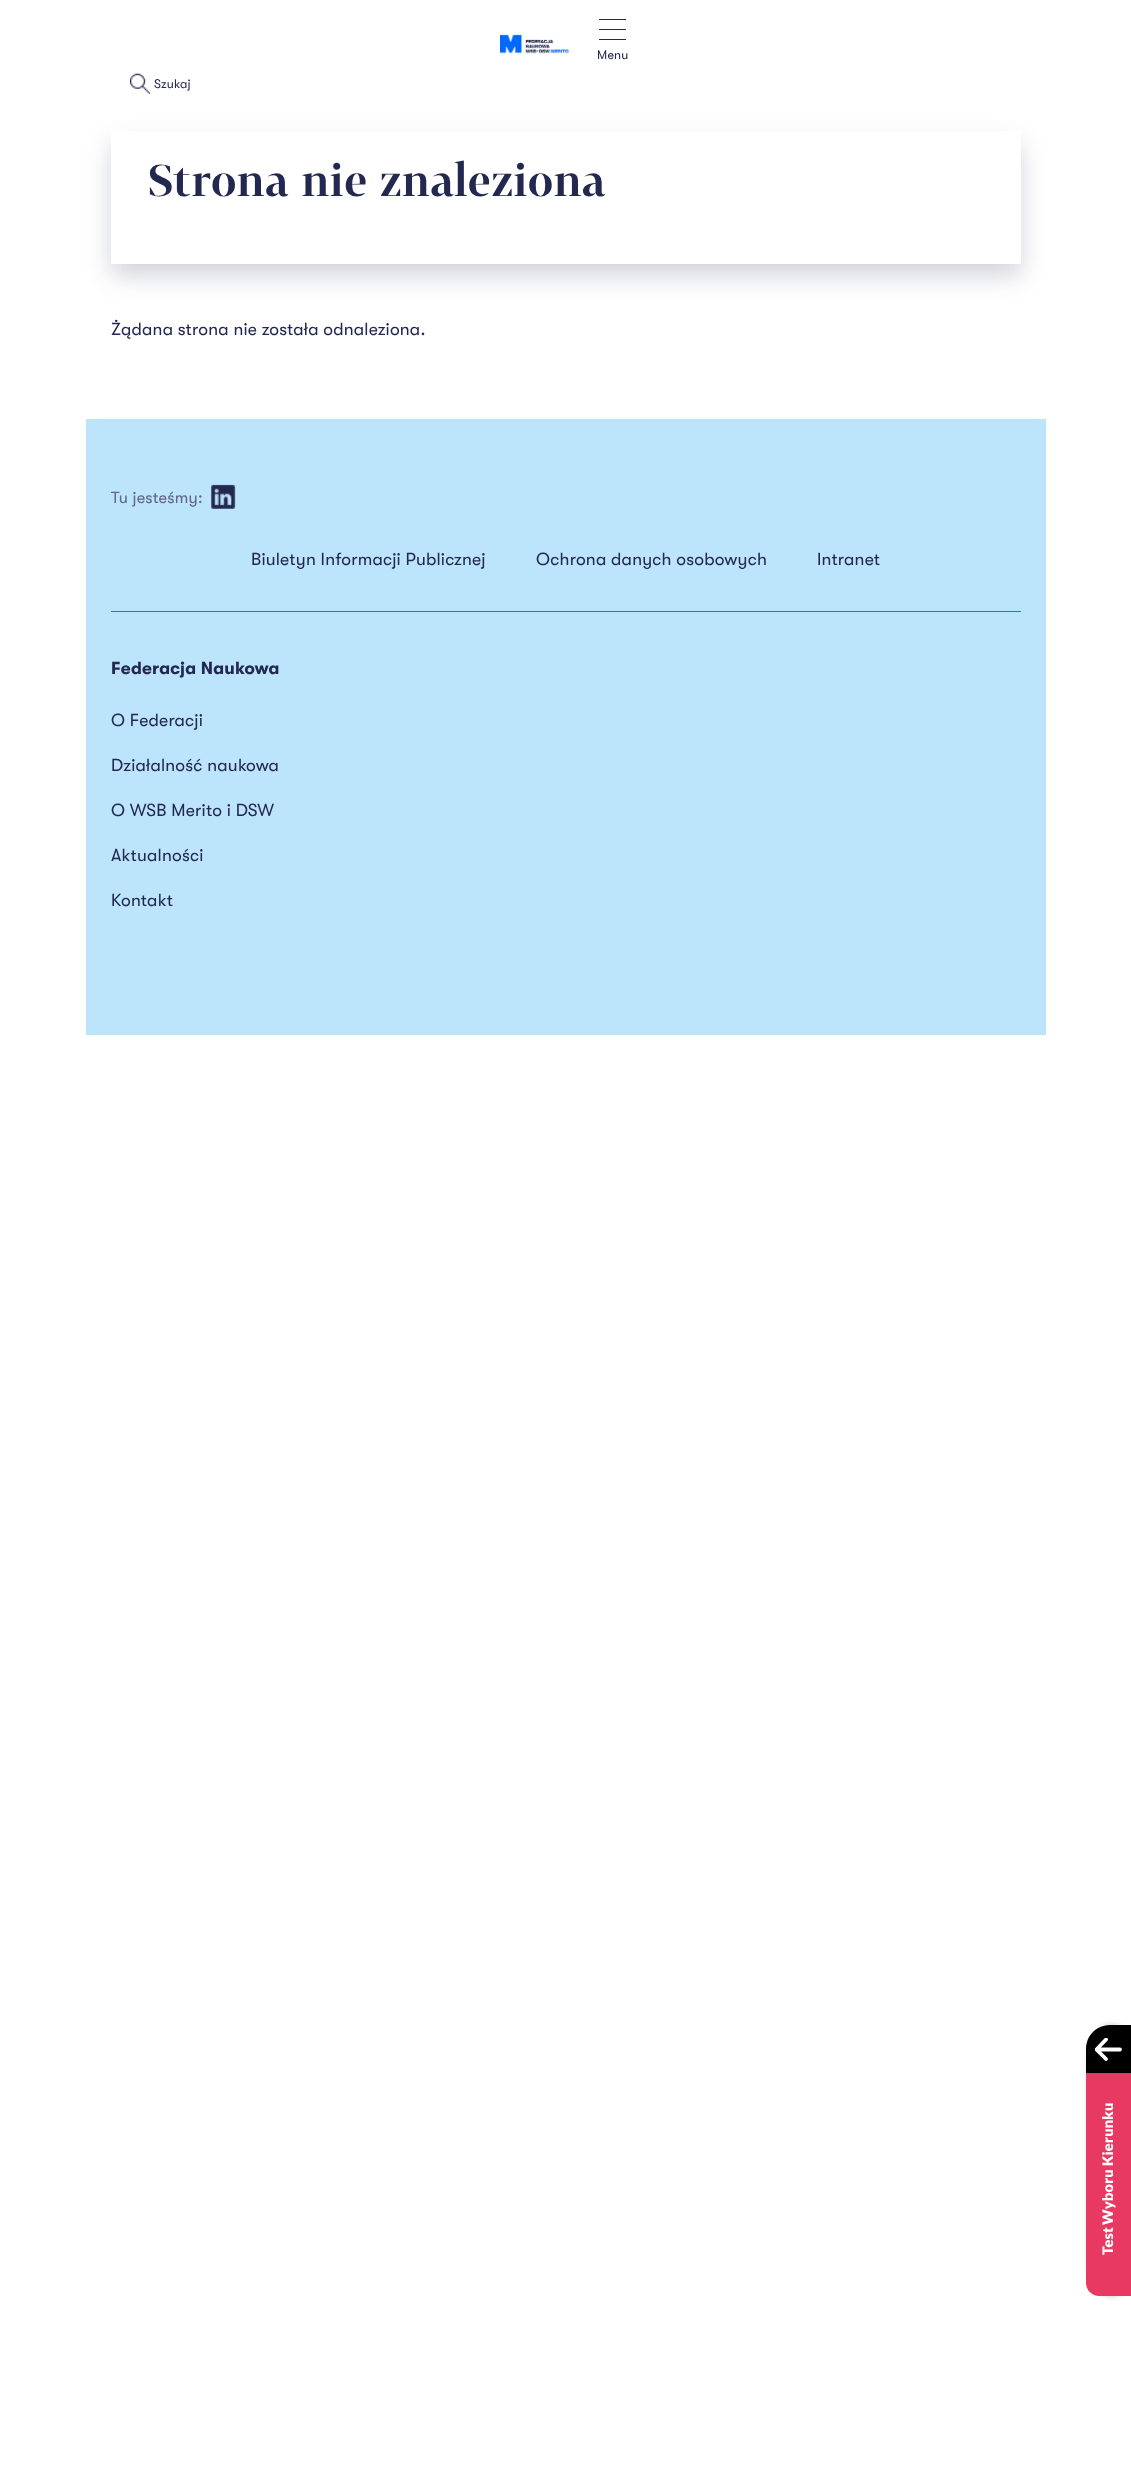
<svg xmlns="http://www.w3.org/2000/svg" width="1131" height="2471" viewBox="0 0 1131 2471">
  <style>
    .t1 { font: 12.5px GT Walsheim; letter-spacing: 0.2px; fill: #22284f; }
    .t2 { font: 43.75px 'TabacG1'; letter-spacing: 0.2px; fill: #22284f; }
    .t3 { font: 17.5px GT Walsheim; letter-spacing: 0.2px; fill: #22284f; }
    .t4 { font: 16.25px GT Walsheim; letter-spacing: 0.25px; fill: #616687; }
    .t5 { font: bold 17.5px GT Walsheim; letter-spacing: 0.2px; fill: #22284f; }
    .t6 { font: 900 14.5px Lato; letter-spacing: 0.2px; fill: #fff; }
  </style>
  <defs>
    <clipPath id="clip1"><rect x="1095" y="2038" width="28" height="23"/></clipPath>
  </defs>
  <rect width="100%" height="100%" fill="#fff"/>
  <image x="500" y="34" width="69" height="20" href="images/1.png"/>
  <rect x="599" y="19" width="27" height="1" fill="#22284f"/>
  <rect x="599" y="29" width="27" height="1" fill="#22284f"/>
  <rect x="599" y="39" width="27" height="1" fill="#22284f"/>
  <text x="597" y="59" class="t1">Menu</text>
  <image x="130" y="73" width="21" height="21" href="images/2.png"/>
  <text x="154" y="88" class="t1">Szukaj</text>
  <rect x="111" y="144" width="910" height="132" fill="#22284f33" filter="blur(12.5px)"/>
  <rect x="111" y="131" width="910" height="133" fill="#fff"/>
  <text x="148" y="196" class="t2">Strona nie znaleziona</text>
  <text x="111" y="335" class="t3">Żądana strona nie została odnaleziona.</text>
  <rect x="86" y="419" width="960" height="616" fill="#bce4fa"/>
  <text x="111" y="503" class="t4">Tu jesteśmy:</text>
  <image x="211" y="484" width="25" height="25" href="images/3.png"/>
  <text x="251" y="565" class="t3">Biuletyn Informacji Publicznej</text>
  <text x="536" y="565" class="t3">Ochrona danych osobowych</text>
  <text x="817" y="565" class="t3">Intranet</text>
  <rect x="111" y="611" width="910" height="1" fill="#616687"/>
  <text x="111" y="674" class="t5">Federacja Naukowa</text>
  <text x="111" y="726" class="t3">O Federacji</text>
  <text x="111" y="771" class="t3">Działalność naukowa</text>
  <text x="111" y="816" class="t3">O WSB Merito i DSW</text>
  <text x="111" y="861" class="t3">Aktualności</text>
  <text x="111" y="906" class="t3">Kontakt</text>
  <rect x="1089" y="2025" width="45" height="271" rx="38" fill="#00000040" filter="blur(3px)"/>
  <path d="M1110 2025H1131V2073H1086V2049C1086 2035.5 1096.5 2025 1110 2025Z" fill="#000"/>
  <g clip-path="url(#clip1)">
    <path d="M1120 2049.5H1096.5M1106 2039.5L1096.5 2049.5L1106 2059" fill="none" stroke="#fff" stroke-width="3.8" stroke-linecap="round" stroke-linejoin="round"/>
  </g>
  <path d="M1086 2073H1131V2296H1099C1092 2296 1086 2290 1086 2283Z" fill="#e83962"/>
  <text x="1113" y="2225" transform="rotate(-90 1113 2225)" class="t6">Wyboru Kierunku</text>
  <text x="1113" y="2255" transform="rotate(-90 1113 2255)" class="t6">Test</text>
</svg>
